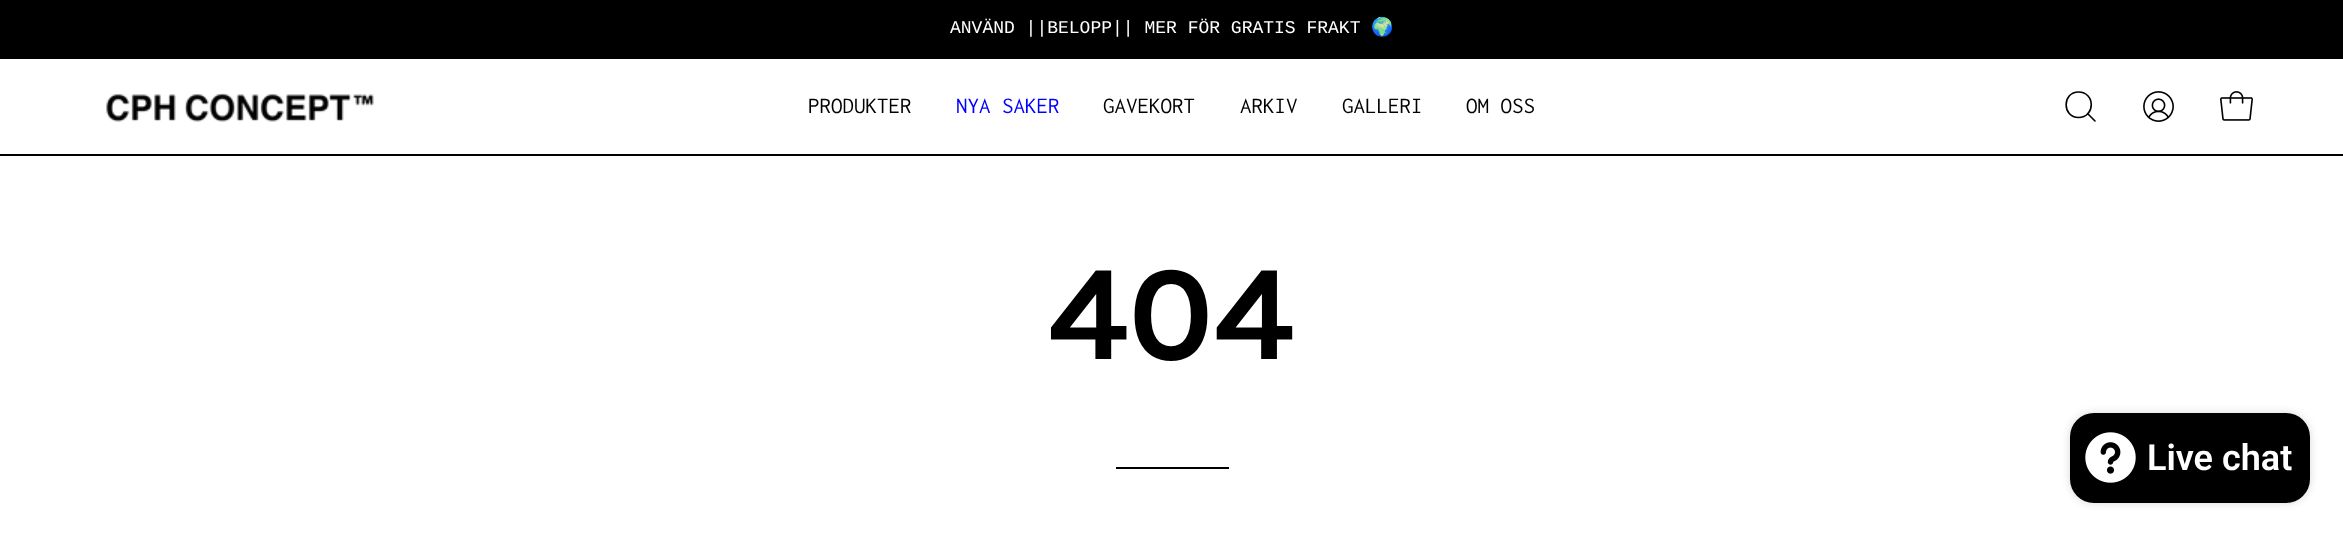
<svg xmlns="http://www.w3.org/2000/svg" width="2343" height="534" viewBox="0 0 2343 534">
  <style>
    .t1 { font: 18px Liberation Mono; fill: #fff; }
    .t2 { font: 18px Noto Color Emoji; fill: #fff; }
    .t3 { font: 23px Inconsolata; fill: #000; }
    .t4 { font: 23px Inconsolata; fill: #00f; }
    .t5 { font: bold 135px Karla; fill: #000; }
    .t6 { font: 600 36px Roboto; fill: #fff; }
  </style>
  <rect width="100%" height="100%" fill="#fff"/>
  <rect x="0" y="0" width="2343" height="59" fill="#000"/>
  <text x="950" y="33" class="t1">ANVÄND ||BELOPP|| MER FÖR GRATIS FRAKT</text>
  <text x="1371" y="33" class="t2">🌍</text>
  <image x="106" y="93" width="268" height="29" href="images/1.png"/>
  <text x="808" y="113" class="t3">PRODUKTER</text>
  <text x="956" y="113" class="t4">NYA SAKER</text>
  <text x="1103" y="113" class="t3">GAVEKORT</text>
  <text x="1240" y="113" class="t3">ARKIV</text>
  <text x="1342" y="113" class="t3">GALLERI</text>
  <text x="1466" y="113" class="t3">OM OSS</text>
  <path d="M2078.5 117.5C2095.5 117.5 2095.5 92 2078.5 92C2062 92 2062 117.5 2078.5 117.5ZM2087.5 113.5L2095 121" fill="none" stroke="#000" stroke-width="1.6" stroke-linecap="round" stroke-linejoin="round"/>
  <image x="2143" y="91" width="31" height="31" href="images/2.png"/>
  <image x="2220" y="91" width="33" height="30" href="images/3.png"/>
  <rect x="0" y="154" width="2343" height="2" fill="#000"/>
  <text x="1048" y="359" class="t5">404</text>
  <rect x="1116" y="467" width="113" height="2" fill="#000"/>
  <rect x="2070" y="413" width="240" height="90" rx="24" fill="#00000026" filter="blur(4px)"/>
  <rect x="2070" y="413" width="240" height="90" rx="24" fill="#000"/>
  <image x="2085" y="432" width="51" height="51" href="images/4.png"/>
  <text x="2147" y="470" class="t6">Live chat</text>
</svg>
